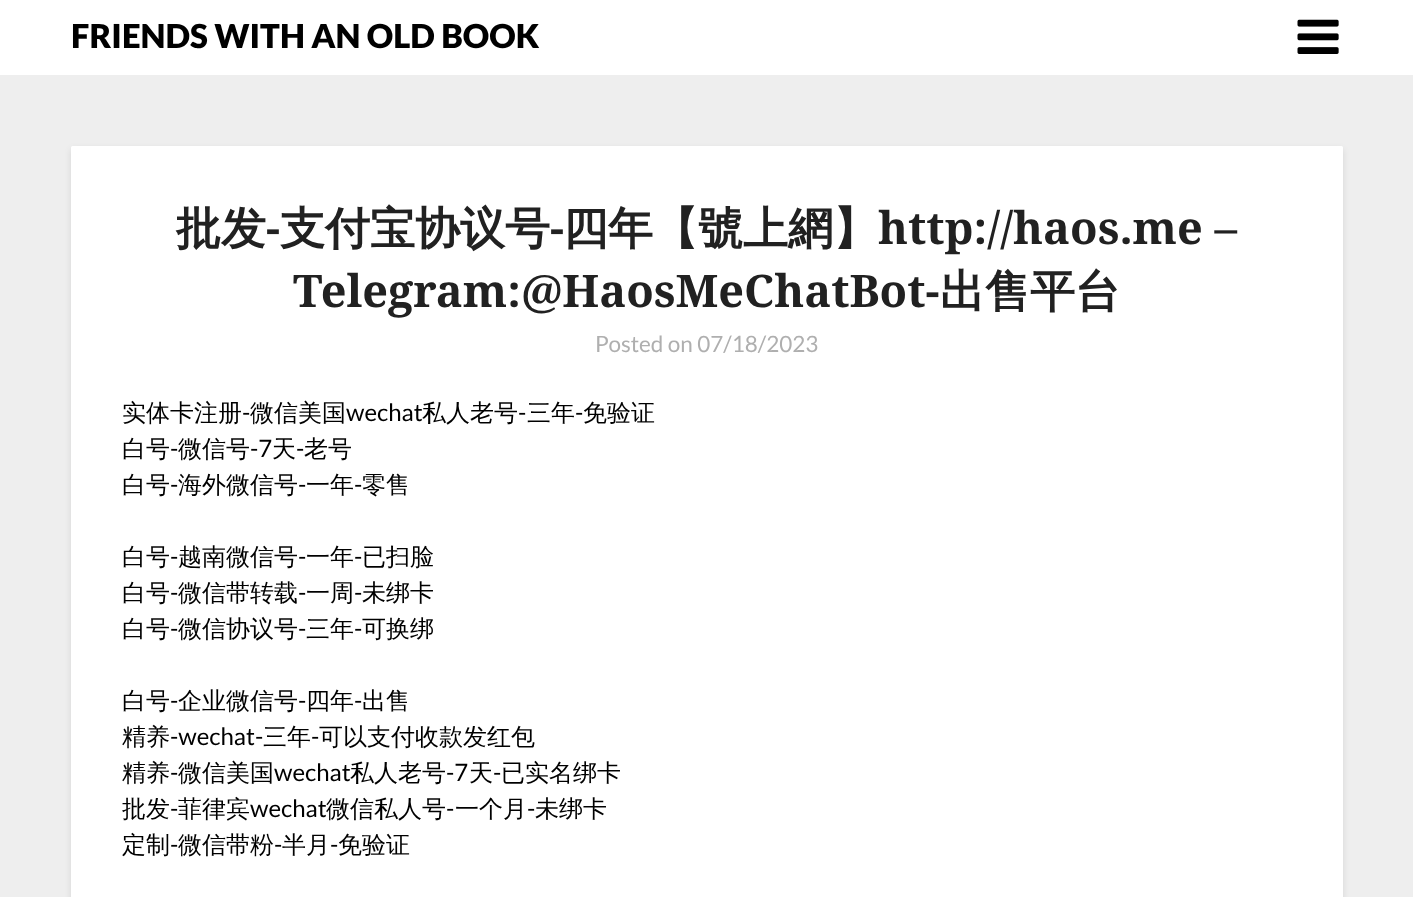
<svg xmlns="http://www.w3.org/2000/svg" width="1413" height="897" viewBox="0 0 1413 897">
  <style>
    .t1 { font: 900 33px Lato; fill: #000; }
    .t2 { font: bold 45px WenQuanYi Zen Hei; fill: #212121; }
    .t3 { font: bold 45px Noto Serif; fill: #212121; }
    .t4 { font: 22.5px Lato; fill: #afafaf; }
    .t5 { font: 500 24px WenQuanYi Zen Hei; fill: #000; }
    .t6 { font: 24px Lato; fill: #000; }
  </style>
  <rect width="100%" height="100%" fill="#eee"/>
  <rect x="0" y="0" width="1413" height="75" fill="#fff"/>
  <text x="71" y="48" class="t1">FRIENDS WITH AN OLD BOOK</text>
  <image x="1297" y="19" width="42" height="35" href="images/1.png"/>
  <rect x="71" y="149" width="1272" height="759" rx="1.5" fill="#0000001a" filter="blur(3px)"/>
  <rect x="71" y="146" width="1272" height="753" rx="1.5" fill="#fff"/>
  <text x="176" y="244" class="t2">批发</text>
  <text x="266" y="244" class="t3">-</text>
  <text x="280" y="244" class="t2">支付宝协议号</text>
  <text x="550" y="244" class="t3">-</text>
  <text x="563" y="244" class="t2">四年【號上網】</text>
  <text x="878" y="244" class="t3">http://haos.me –</text>
  <text x="293" y="307" class="t3">Telegram:@HaosMeChatBot-</text>
  <text x="940" y="307" class="t2">出售平台</text>
  <text x="595" y="352" class="t4">Posted on 07/18/2023</text>
  <text x="122" y="421" class="t5">实体卡注册</text>
  <text x="242" y="421" class="t6">-</text>
  <text x="250" y="421" class="t5">微信美国</text>
  <text x="346" y="421" class="t6">wechat</text>
  <text x="422" y="421" class="t5">私人老号</text>
  <text x="518" y="421" class="t6">-</text>
  <text x="527" y="421" class="t5">三年</text>
  <text x="575" y="421" class="t6">-</text>
  <text x="583" y="421" class="t5">免验证</text>
  <text x="122" y="457" class="t5">白号</text>
  <text x="170" y="457" class="t6">-</text>
  <text x="178" y="457" class="t5">微信号</text>
  <text x="250" y="457" class="t6">-7</text>
  <text x="272" y="457" class="t5">天</text>
  <text x="296" y="457" class="t6">-</text>
  <text x="304" y="457" class="t5">老号</text>
  <text x="122" y="493" class="t5">白号</text>
  <text x="170" y="493" class="t6">-</text>
  <text x="178" y="493" class="t5">海外微信号</text>
  <text x="298" y="493" class="t6">-</text>
  <text x="306" y="493" class="t5">一年</text>
  <text x="354" y="493" class="t6">-</text>
  <text x="362" y="493" class="t5">零售</text>
  <text x="122" y="565" class="t5">白号</text>
  <text x="170" y="565" class="t6">-</text>
  <text x="178" y="565" class="t5">越南微信号</text>
  <text x="298" y="565" class="t6">-</text>
  <text x="306" y="565" class="t5">一年</text>
  <text x="354" y="565" class="t6">-</text>
  <text x="362" y="565" class="t5">已扫脸</text>
  <text x="122" y="601" class="t5">白号</text>
  <text x="170" y="601" class="t6">-</text>
  <text x="178" y="601" class="t5">微信带转载</text>
  <text x="298" y="601" class="t6">-</text>
  <text x="306" y="601" class="t5">一周</text>
  <text x="354" y="601" class="t6">-</text>
  <text x="362" y="601" class="t5">未绑卡</text>
  <text x="122" y="637" class="t5">白号</text>
  <text x="170" y="637" class="t6">-</text>
  <text x="178" y="637" class="t5">微信协议号</text>
  <text x="298" y="637" class="t6">-</text>
  <text x="306" y="637" class="t5">三年</text>
  <text x="354" y="637" class="t6">-</text>
  <text x="362" y="637" class="t5">可换绑</text>
  <text x="122" y="709" class="t5">白号</text>
  <text x="170" y="709" class="t6">-</text>
  <text x="178" y="709" class="t5">企业微信号</text>
  <text x="298" y="709" class="t6">-</text>
  <text x="306" y="709" class="t5">四年</text>
  <text x="354" y="709" class="t6">-</text>
  <text x="362" y="709" class="t5">出售</text>
  <text x="122" y="745" class="t5">精养</text>
  <text x="170" y="745" class="t6">-wechat-</text>
  <text x="263" y="745" class="t5">三年</text>
  <text x="311" y="745" class="t6">-</text>
  <text x="319" y="745" class="t5">可以支付收款发红包</text>
  <text x="122" y="781" class="t5">精养</text>
  <text x="170" y="781" class="t6">-</text>
  <text x="178" y="781" class="t5">微信美国</text>
  <text x="274" y="781" class="t6">wechat</text>
  <text x="350" y="781" class="t5">私人老号</text>
  <text x="446" y="781" class="t6">-7</text>
  <text x="469" y="781" class="t5">天</text>
  <text x="493" y="781" class="t6">-</text>
  <text x="501" y="781" class="t5">已实名绑卡</text>
  <text x="122" y="817" class="t5">批发</text>
  <text x="170" y="817" class="t6">-</text>
  <text x="178" y="817" class="t5">菲律宾</text>
  <text x="250" y="817" class="t6">wechat</text>
  <text x="326" y="817" class="t5">微信私人号</text>
  <text x="446" y="817" class="t6">-</text>
  <text x="455" y="817" class="t5">一个月</text>
  <text x="527" y="817" class="t6">-</text>
  <text x="535" y="817" class="t5">未绑卡</text>
  <text x="122" y="853" class="t5">定制</text>
  <text x="170" y="853" class="t6">-</text>
  <text x="178" y="853" class="t5">微信带粉</text>
  <text x="274" y="853" class="t6">-</text>
  <text x="282" y="853" class="t5">半月</text>
  <text x="330" y="853" class="t6">-</text>
  <text x="338" y="853" class="t5">免验证</text>
</svg>
